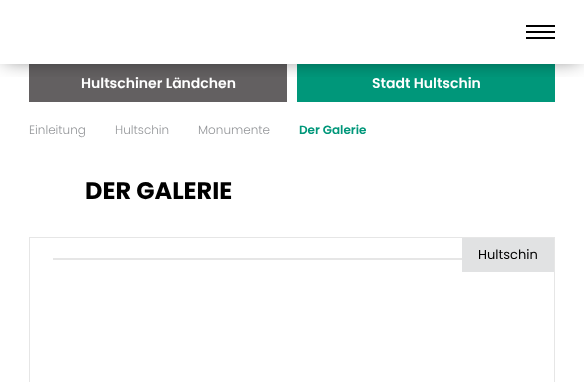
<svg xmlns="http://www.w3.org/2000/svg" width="584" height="382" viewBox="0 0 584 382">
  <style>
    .t1 { font: 600 14px Poppins; fill: #fff; }
    .t2 { font: 300 12px Poppins; fill: #95979a; }
    .t3 { font: 600 12px Poppins; fill: #00977a; }
    .t4 { font: bold 24px Poppins; fill: #000; }
    .t5 { font: 13px Poppins; fill: #000; }
  </style>
  <defs>
    <clipPath id="clip1"><rect x="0" y="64" width="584" height="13"/></clipPath>
  </defs>
  <rect width="100%" height="100%" fill="#fff"/>
  <rect x="29" y="64" width="258" height="38" fill="#636061"/>
  <rect x="297" y="64" width="258" height="38" fill="#00977a"/>
  <g clip-path="url(#clip1)">
    <rect x="5" y="5" width="574" height="54" fill="#00000099" filter="blur(10px)"/>
  </g>
  <rect x="526" y="31" width="29" height="2" fill="#000"/>
  <rect x="526" y="25" width="29" height="2" fill="#000"/>
  <rect x="526" y="37" width="29" height="2" fill="#000"/>
  <text x="81" y="88" class="t1">Hultschiner Ländchen</text>
  <text x="372" y="88" class="t1">Stadt Hultschin</text>
  <text x="29" y="134" class="t2">Einleitung</text>
  <text x="115" y="134" class="t2">Hultschin</text>
  <text x="198" y="134" class="t2">Monumente</text>
  <text x="299" y="134" class="t3">Der Galerie</text>
  <text x="85" y="199" class="t4">DER GALERIE</text>
  <rect x="29.5" y="237.5" width="525" height="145" fill="none" stroke="#e6e6e6"/>
  <rect x="53" y="258" width="409" height="2" fill="#e6e6e6"/>
  <rect x="462" y="238" width="92" height="34" fill="#e1e2e3"/>
  <text x="478" y="259" class="t5">Hultschin</text>
</svg>
